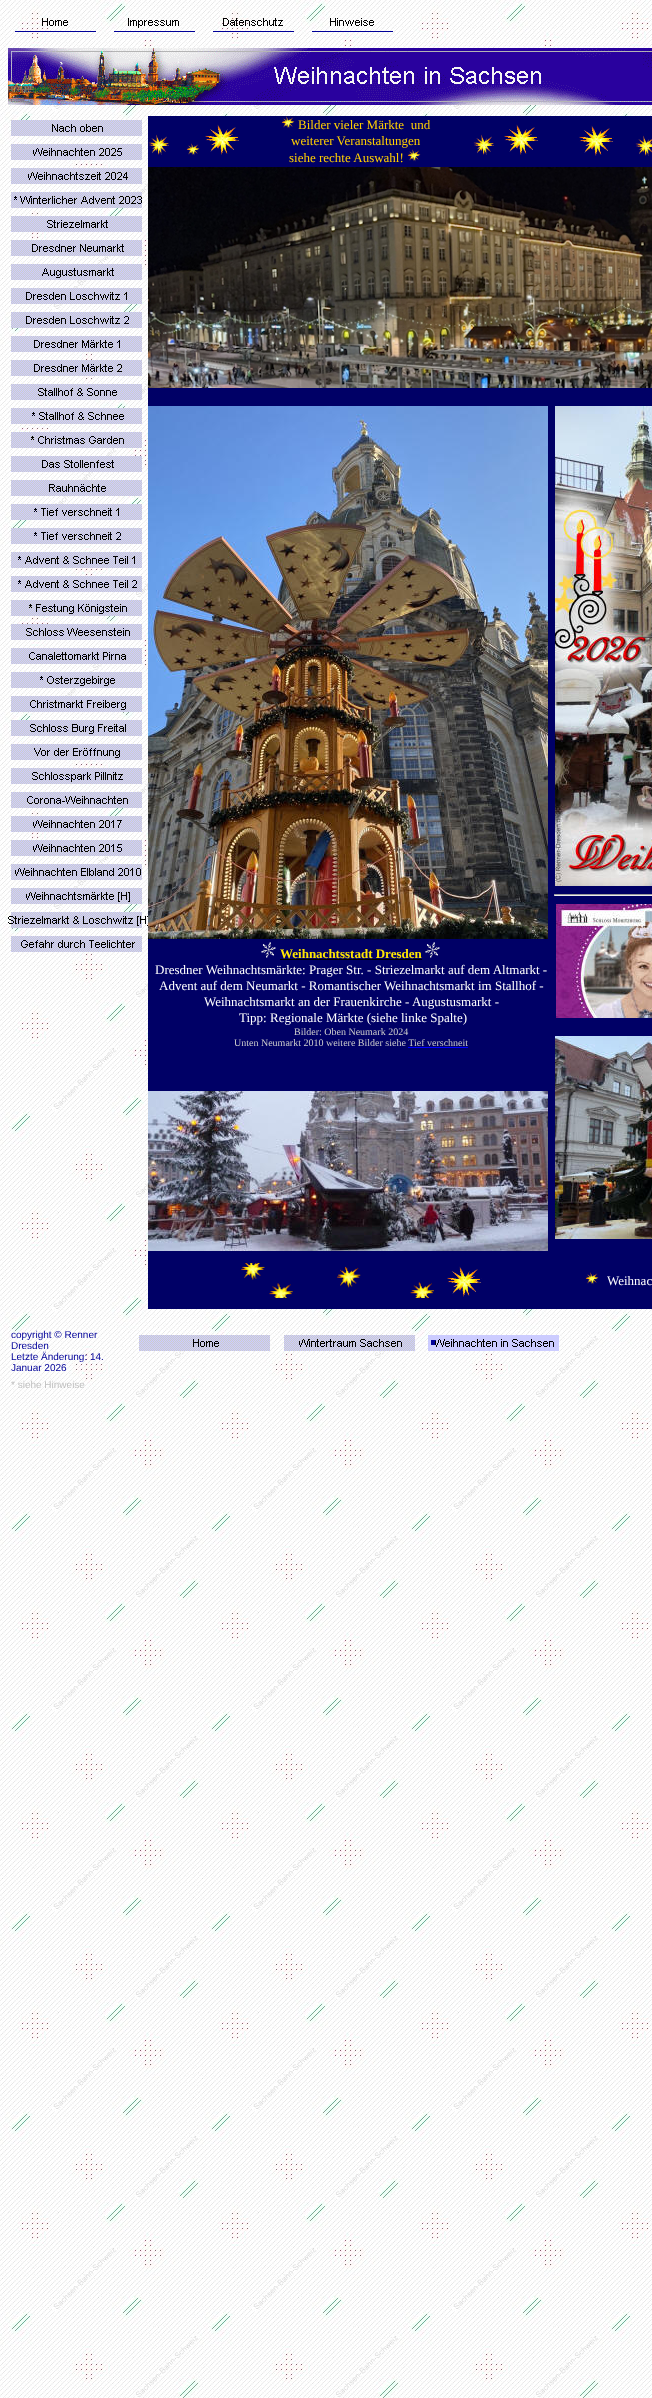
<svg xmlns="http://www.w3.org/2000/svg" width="652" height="2398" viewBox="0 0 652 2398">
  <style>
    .t1 { font: 13px Liberation Serif; fill: #ffcf00; }
    .t2 { font: bold 13px Liberation Serif; fill: #ffe702; }
    .t3 { font: 13px Liberation Serif; fill: #fff; }
    .t4 { font: 10px Liberation Serif; fill: #ccc; }
    .t5 { font: 10px Liberation Sans; fill: #009; }
    .t6 { font: 10px Liberation Sans; fill: #c0c0c0; }
  </style>
  <rect width="100%" height="100%" fill="#fff"/>
  <image x="0" y="0" width="652" height="2398" href="images/1.png"/>
  <image x="15" y="18" width="81" height="14" href="images/2.png"/>
  <image x="114" y="18" width="81" height="14" href="images/3.png"/>
  <image x="213" y="18" width="81" height="14" href="images/4.png"/>
  <image x="312" y="18" width="81" height="14" href="images/5.png"/>
  <image x="8" y="48" width="644" height="57" href="images/6.png"/>
  <image x="11" y="120" width="131" height="16" href="images/7.png"/>
  <image x="11" y="144" width="131" height="16" href="images/8.png"/>
  <image x="11" y="168" width="131" height="16" href="images/9.png"/>
  <image x="11" y="192" width="131" height="16" href="images/10.png"/>
  <image x="11" y="216" width="131" height="16" href="images/11.png"/>
  <image x="11" y="240" width="131" height="16" href="images/12.png"/>
  <image x="11" y="264" width="131" height="16" href="images/13.png"/>
  <image x="11" y="288" width="131" height="16" href="images/14.png"/>
  <image x="11" y="312" width="131" height="16" href="images/15.png"/>
  <image x="11" y="336" width="131" height="16" href="images/16.png"/>
  <image x="11" y="360" width="131" height="16" href="images/17.png"/>
  <image x="11" y="384" width="131" height="16" href="images/18.png"/>
  <image x="11" y="408" width="131" height="16" href="images/19.png"/>
  <image x="11" y="432" width="131" height="16" href="images/20.png"/>
  <image x="11" y="456" width="131" height="16" href="images/21.png"/>
  <image x="11" y="480" width="131" height="16" href="images/22.png"/>
  <image x="11" y="504" width="131" height="16" href="images/23.png"/>
  <image x="11" y="528" width="131" height="16" href="images/24.png"/>
  <image x="11" y="552" width="131" height="16" href="images/25.png"/>
  <image x="11" y="576" width="131" height="16" href="images/26.png"/>
  <image x="11" y="600" width="131" height="16" href="images/27.png"/>
  <image x="11" y="624" width="131" height="16" href="images/28.png"/>
  <image x="11" y="648" width="131" height="16" href="images/29.png"/>
  <image x="11" y="672" width="131" height="16" href="images/30.png"/>
  <image x="11" y="696" width="131" height="16" href="images/31.png"/>
  <image x="11" y="720" width="131" height="16" href="images/32.png"/>
  <image x="11" y="744" width="131" height="16" href="images/33.png"/>
  <image x="11" y="768" width="131" height="16" href="images/34.png"/>
  <image x="11" y="792" width="131" height="16" href="images/35.png"/>
  <image x="11" y="816" width="131" height="16" href="images/36.png"/>
  <image x="11" y="840" width="131" height="16" href="images/37.png"/>
  <image x="11" y="864" width="131" height="16" href="images/38.png"/>
  <image x="11" y="888" width="131" height="16" href="images/39.png"/>
  <image x="8" y="912" width="140" height="16" href="images/40.png"/>
  <image x="11" y="936" width="131" height="16" href="images/41.png"/>
  <rect x="148" y="116" width="504" height="1193" fill="#006"/>
  <image x="148" y="134" width="21" height="21" href="images/42.png"/>
  <image x="186" y="143" width="14" height="13" href="images/43.png"/>
  <image x="205" y="124" width="35" height="31" href="images/44.png"/>
  <image x="281" y="116" width="14" height="13" href="images/43.png"/>
  <text x="298" y="129" class="t1" xml:space="preserve">Bilder vieler Märkte  und</text>
  <text x="291" y="145" class="t1">weiterer Veranstaltungen</text>
  <text x="289" y="162" class="t1">siehe rechte Auswahl!</text>
  <image x="407" y="149" width="14" height="13" href="images/45.png"/>
  <image x="473" y="134" width="21" height="21" href="images/42.png"/>
  <image x="504" y="124" width="35" height="31" href="images/46.png"/>
  <image x="579" y="125" width="35" height="31" href="images/46.png"/>
  <image x="635" y="135" width="17" height="21" href="images/47.png"/>
  <image x="148" y="167" width="504" height="221" href="images/48.png"/>
  <image x="148" y="406" width="400" height="533" href="images/49.png"/>
  <image x="554" y="406" width="98" height="833" href="images/50.png"/>
  <image x="261" y="942" width="15" height="16" href="images/51.png"/>
  <text x="280" y="958" class="t2">Weihnachtsstadt Dresden</text>
  <rect x="280" y="959" width="142" height="1" fill="#000"/>
  <image x="425" y="942" width="15" height="16" href="images/51.png"/>
  <text x="155" y="974" class="t3">Dresdner Weihnachtsmärkte: Prager Str. - Striezelmarkt auf dem Altmarkt -</text>
  <text x="159" y="990" class="t3">Advent auf dem Neumarkt - Romantischer Weihnachtsmarkt im Stallhof -</text>
  <text x="204" y="1006" class="t3">Weihnachtsmarkt an der Frauenkirche - Augustusmarkt -</text>
  <text x="239" y="1022" class="t3">Tipp: Regionale Märkte (siehe linke Spalte)</text>
  <text x="294" y="1035" class="t4">Bilder: Oben Neumark 2024</text>
  <text x="234" y="1046" class="t4">Unten Neumarkt 2010 weitere Bilder siehe Tief verschneit</text>
  <rect x="408" y="1047" width="60" height="1" fill="#00f"/>
  <image x="148" y="1091" width="400" height="160" href="images/52.png"/>
  <image x="241" y="1263" width="193" height="35" href="images/53.png"/>
  <image x="447" y="1266" width="35" height="31" href="images/54.png"/>
  <image x="585" y="1272" width="14" height="13" href="images/45.png"/>
  <text x="607" y="1285" class="t3">Weihnac</text>
  <text x="11" y="1338" class="t5">copyright © Renner</text>
  <text x="11" y="1349" class="t5">Dresden</text>
  <text x="11" y="1360" class="t5">Letzte Änderung: 14.</text>
  <text x="11" y="1371" class="t5">Januar 2026</text>
  <image x="139" y="1335" width="131" height="16" href="images/55.png"/>
  <image x="284" y="1335" width="131" height="16" href="images/56.png"/>
  <image x="428" y="1335" width="131" height="16" href="images/57.png"/>
  <text x="11" y="1388" class="t6">* siehe Hinweise</text>
</svg>
